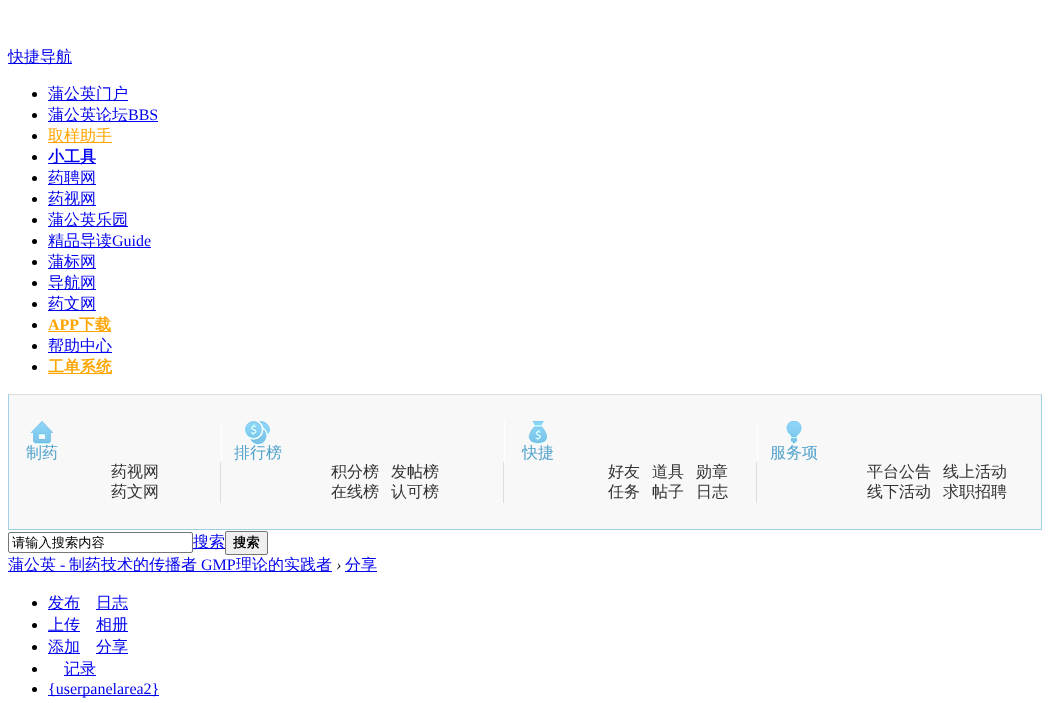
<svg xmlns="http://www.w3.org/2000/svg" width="1050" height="703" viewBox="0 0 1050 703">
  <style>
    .t1 { font: 500 16px WenQuanYi Zen Hei; fill: #00e; }
    .t2 { font: 16px Liberation Serif; fill: #00e; }
    .t3 { font: 500 16px WenQuanYi Zen Hei; fill: #ffa500; }
    .t4 { font: bold 16px WenQuanYi Zen Hei; fill: #00e; }
    .t5 { font: bold 16px Liberation Serif; fill: #ffa500; }
    .t6 { font: bold 16px WenQuanYi Zen Hei; fill: #ffa500; }
    .t7 { font: 500 16px WenQuanYi Zen Hei; fill: #52a3cc; }
    .t8 { font: 500 16px WenQuanYi Zen Hei; fill: #333; }
    .t9 { font: 500 13.25px WenQuanYi Zen Hei; fill: #000; }
    .t10 { font: bold 13.25px WenQuanYi Zen Hei; fill: #000; }
    .t11 { font: italic 16px Liberation Serif; fill: #000; }
  </style>
  <rect width="100%" height="100%" fill="#fff"/>
  <rect x="8" y="63" width="64" height="1" fill="#00e"/>
  <text x="8" y="62" class="t1">快捷导航</text>
  <circle cx="34.5" cy="94.5" r="2.5" fill="#000"/>
  <rect x="48" y="100" width="80" height="1" fill="#00e"/>
  <text x="48" y="99" class="t1">蒲公英门户</text>
  <circle cx="34.5" cy="115.5" r="2.5" fill="#000"/>
  <rect x="48" y="121" width="110" height="1" fill="#00e"/>
  <text x="48" y="120" class="t1">蒲公英论坛</text>
  <text x="128" y="120" class="t2">BBS</text>
  <circle cx="34.5" cy="136.5" r="2.5" fill="#000"/>
  <rect x="48" y="142" width="64" height="1" fill="#ffa500"/>
  <text x="48" y="141" class="t3">取样助手</text>
  <circle cx="34.5" cy="157.5" r="2.5" fill="#000"/>
  <rect x="48" y="163" width="48" height="1" fill="#00e"/>
  <text x="48" y="162" class="t4">小工具</text>
  <circle cx="34.5" cy="178.5" r="2.5" fill="#000"/>
  <rect x="48" y="184" width="48" height="1" fill="#00e"/>
  <text x="48" y="183" class="t1">药聘网</text>
  <circle cx="34.5" cy="199.5" r="2.5" fill="#000"/>
  <rect x="48" y="205" width="48" height="1" fill="#00e"/>
  <text x="48" y="204" class="t1">药视网</text>
  <circle cx="34.5" cy="220.5" r="2.5" fill="#000"/>
  <rect x="48" y="226" width="80" height="1" fill="#00e"/>
  <text x="48" y="225" class="t1">蒲公英乐园</text>
  <circle cx="34.5" cy="241.5" r="2.5" fill="#000"/>
  <rect x="48" y="247" width="103" height="1" fill="#00e"/>
  <text x="48" y="246" class="t1">精品导读</text>
  <text x="112" y="246" class="t2">Guide</text>
  <circle cx="34.5" cy="262.5" r="2.5" fill="#000"/>
  <rect x="48" y="268" width="48" height="1" fill="#00e"/>
  <text x="48" y="267" class="t1">蒲标网</text>
  <circle cx="34.5" cy="283.5" r="2.5" fill="#000"/>
  <rect x="48" y="289" width="48" height="1" fill="#00e"/>
  <text x="48" y="288" class="t1">导航网</text>
  <circle cx="34.5" cy="304.5" r="2.5" fill="#000"/>
  <rect x="48" y="310" width="48" height="1" fill="#00e"/>
  <text x="48" y="309" class="t1">药文网</text>
  <circle cx="34.5" cy="325.5" r="2.5" fill="#000"/>
  <text x="48" y="330" class="t5">APP</text>
  <rect x="48" y="331" width="63" height="1" fill="#ffa500"/>
  <text x="79" y="330" class="t6">下载</text>
  <circle cx="34.5" cy="346.5" r="2.5" fill="#000"/>
  <rect x="48" y="352" width="64" height="1" fill="#00e"/>
  <text x="48" y="351" class="t1">帮助中心</text>
  <circle cx="34.5" cy="367.5" r="2.5" fill="#000"/>
  <rect x="48" y="373" width="64" height="1" fill="#ffa500"/>
  <text x="48" y="372" class="t6">工单系统</text>
  <rect x="9" y="395" width="1032" height="134" fill="#f8f8f8"/>
  <rect x="8" y="394" width="1034" height="1" fill="#ddd"/>
  <rect x="1041" y="394" width="1" height="136" fill="#a1cfe6"/>
  <rect x="8" y="529" width="1034" height="1" fill="#a1cfe6"/>
  <rect x="8" y="394" width="1" height="136" fill="#a1cfe6"/>
  <image x="30" y="421" width="24" height="23" href="images/1.png"/>
  <text x="26" y="458" class="t7">制药</text>
  <rect x="220" y="462" width="1" height="41" fill="#ddd"/>
  <text x="111" y="477" class="t8">药视网</text>
  <text x="111" y="497" class="t8">药文网</text>
  <rect x="221" y="421" width="1" height="41" fill="#fff"/>
  <image x="245" y="421" width="25" height="24" href="images/2.png"/>
  <text x="234" y="458" class="t7">排行榜</text>
  <rect x="503" y="462" width="1" height="41" fill="#ddd"/>
  <text x="331" y="477" class="t8">积分榜</text>
  <text x="391" y="477" class="t8">发帖榜</text>
  <text x="331" y="497" class="t8">在线榜</text>
  <text x="391" y="497" class="t8">认可榜</text>
  <rect x="504" y="421" width="1" height="41" fill="#fff"/>
  <image x="528" y="421" width="19" height="23" href="images/3.png"/>
  <text x="522" y="458" class="t7">快捷</text>
  <rect x="756" y="462" width="1" height="41" fill="#ddd"/>
  <text x="608" y="477" class="t8">好友</text>
  <text x="652" y="477" class="t8">道具</text>
  <text x="696" y="477" class="t8">勋章</text>
  <text x="608" y="497" class="t8">任务</text>
  <text x="652" y="497" class="t8">帖子</text>
  <text x="696" y="497" class="t8">日志</text>
  <rect x="757" y="421" width="1" height="41" fill="#fff"/>
  <image x="786" y="421" width="16" height="23" href="images/4.png"/>
  <text x="770" y="458" class="t7">服务项</text>
  <text x="867" y="477" class="t8">平台公告</text>
  <text x="943" y="477" class="t8">线上活动</text>
  <text x="867" y="497" class="t8">线下活动</text>
  <text x="943" y="497" class="t8">求职招聘</text>
  <rect x="8.5" y="532.5" width="184" height="20" rx="1.5" fill="none" stroke="#767676"/>
  <text x="12" y="547" class="t9">请输入搜索内容</text>
  <rect x="193" y="548" width="32" height="1" fill="#00e"/>
  <text x="193" y="547" class="t1">搜索</text>
  <rect x="225.5" y="531.5" width="42" height="23" rx="1.5" fill="#efefef" stroke="#767676"/>
  <text x="233" y="547" class="t10">搜索</text>
  <rect x="8" y="571" width="324" height="1" fill="#00e"/>
  <text x="8" y="570" class="t1">蒲公英</text>
  <text x="60" y="570" class="t2">-</text>
  <text x="69" y="570" class="t1">制药技术的传播者</text>
  <text x="201" y="570" class="t2">GMP</text>
  <text x="236" y="570" class="t1">理论的实践者</text>
  <text x="336" y="570" class="t11">›</text>
  <rect x="345" y="571" width="32" height="1" fill="#00e"/>
  <text x="345" y="570" class="t1">分享</text>
  <circle cx="34.5" cy="603.5" r="2.5" fill="#000"/>
  <rect x="48" y="609" width="32" height="1" fill="#00e"/>
  <text x="48" y="608" class="t1">发布</text>
  <rect x="96" y="609" width="32" height="1" fill="#00e"/>
  <text x="96" y="608" class="t1">日志</text>
  <circle cx="34.5" cy="625.5" r="2.5" fill="#000"/>
  <rect x="48" y="631" width="32" height="1" fill="#00e"/>
  <text x="48" y="630" class="t1">上传</text>
  <rect x="96" y="631" width="32" height="1" fill="#00e"/>
  <text x="96" y="630" class="t1">相册</text>
  <circle cx="34.5" cy="647.5" r="2.5" fill="#000"/>
  <rect x="48" y="653" width="32" height="1" fill="#00e"/>
  <text x="48" y="652" class="t1">添加</text>
  <rect x="96" y="653" width="32" height="1" fill="#00e"/>
  <text x="96" y="652" class="t1">分享</text>
  <circle cx="34.5" cy="669.5" r="2.5" fill="#000"/>
  <rect x="64" y="675" width="32" height="1" fill="#00e"/>
  <text x="64" y="674" class="t1">记录</text>
  <circle cx="34.5" cy="689.5" r="2.5" fill="#000"/>
  <rect x="48" y="695" width="111" height="1" fill="#00e"/>
  <text x="48" y="694" class="t2">{userpanelarea2}</text>
</svg>
